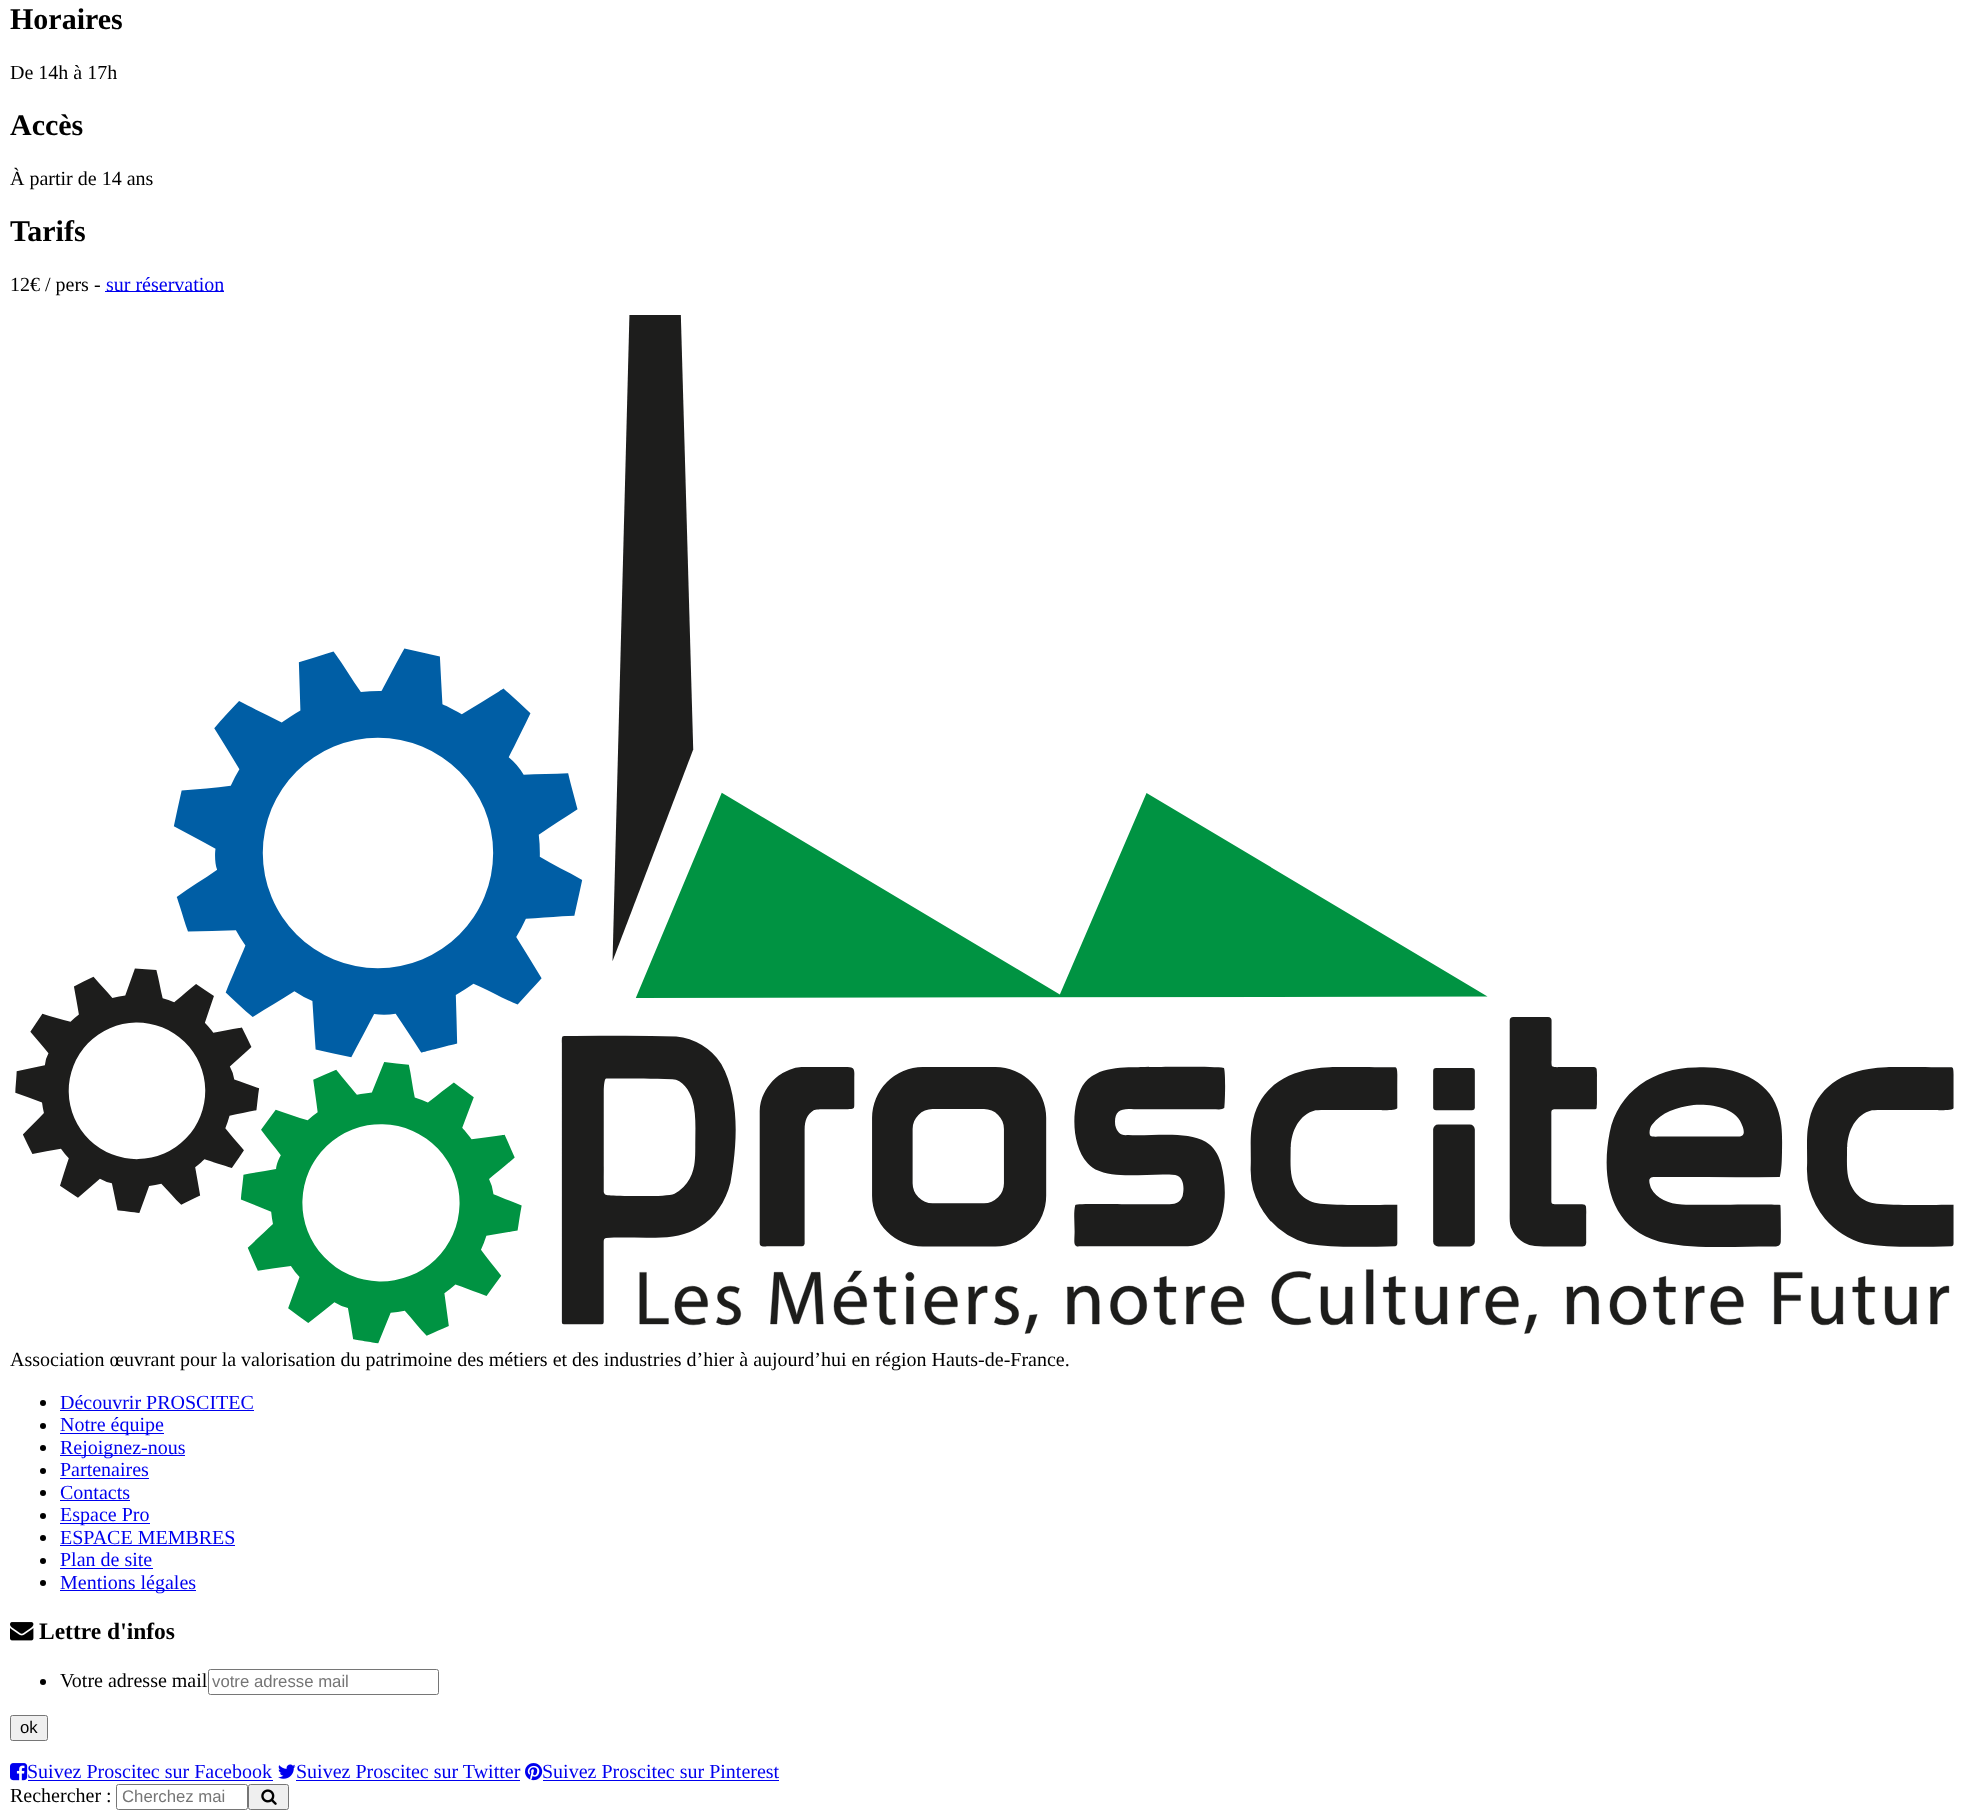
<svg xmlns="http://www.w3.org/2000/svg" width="1963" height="1819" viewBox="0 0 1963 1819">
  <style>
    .t1 { font: bold 30px Liberation Serif; fill: #000; }
    .t2 { font: 20px Liberation Serif; fill: #000; }
    .t3 { font: 20px Liberation Serif; fill: #00e; }
    .t4 { font: bold 23.5px Liberation Serif; fill: #000; }
    .t5 { font: 16.75px Liberation Sans; fill: #757575; }
    .t6 { font: 16.75px Liberation Sans; fill: #000; }
  </style>
  <rect width="100%" height="100%" fill="#fff"/>
  <text x="10" y="29" class="t1">Horaires</text>
  <text x="10" y="79" class="t2">De 14h à 17h</text>
  <text x="10" y="135" class="t1">Accès</text>
  <text x="10" y="185" class="t2">À partir de 14 ans</text>
  <text x="10" y="241" class="t1">Tarifs</text>
  <text x="10" y="291" class="t2">12€ / pers -</text>
  <rect x="105" y="291" width="119" height="1" fill="#00e"/>
  <text x="106" y="291" class="t3">sur réservation</text>
  <image x="15" y="315" width="1939" height="1029" href="images/1.png"/>
  <text x="10" y="1366" class="t2">Association œuvrant pour la valorisation du patrimoine des métiers et des industries d’hier à aujourd’hui en région Hauts-de-France.</text>
  <circle cx="43" cy="1403" r="3" fill="#000"/>
  <text x="60" y="1409" class="t3">Découvrir PROSCITEC</text>
  <rect x="60" y="1410" width="194" height="1" fill="#00e"/>
  <circle cx="43" cy="1426" r="3" fill="#000"/>
  <rect x="60" y="1433" width="104" height="1" fill="#00e"/>
  <text x="60" y="1431" class="t3">Notre équipe</text>
  <circle cx="43" cy="1448" r="3" fill="#000"/>
  <rect x="60" y="1455" width="125" height="1" fill="#00e"/>
  <text x="60" y="1454" class="t3">Rejoignez-nous</text>
  <circle cx="43" cy="1471" r="3" fill="#000"/>
  <text x="60" y="1476" class="t3">Partenaires</text>
  <rect x="60" y="1478" width="89" height="1" fill="#00e"/>
  <circle cx="43" cy="1493" r="3" fill="#000"/>
  <text x="60" y="1499" class="t3">Contacts</text>
  <rect x="60" y="1500" width="70" height="1" fill="#00e"/>
  <circle cx="43" cy="1516" r="3" fill="#000"/>
  <rect x="60" y="1523" width="90" height="1" fill="#00e"/>
  <text x="60" y="1521" class="t3">Espace Pro</text>
  <circle cx="43" cy="1538" r="3" fill="#000"/>
  <text x="60" y="1544" class="t3">ESPACE MEMBRES</text>
  <rect x="60" y="1545" width="175" height="1" fill="#00e"/>
  <circle cx="43" cy="1561" r="3" fill="#000"/>
  <text x="60" y="1566" class="t3">Plan de site</text>
  <rect x="60" y="1568" width="93" height="1" fill="#00e"/>
  <circle cx="43" cy="1583" r="3" fill="#000"/>
  <rect x="60" y="1590" width="136" height="1" fill="#00e"/>
  <text x="60" y="1589" class="t3">Mentions légales</text>
  <image x="10" y="1622" width="24" height="19" href="images/2.png"/>
  <text x="39" y="1639" class="t4">Lettre d'infos</text>
  <circle cx="43" cy="1682" r="3" fill="#000"/>
  <text x="60" y="1687" class="t2">Votre adresse mail</text>
  <rect x="208.5" y="1669.5" width="230" height="25" rx="2" fill="none" stroke="#767676"/>
  <text x="212" y="1687" class="t5">votre adresse mail</text>
  <rect x="10.5" y="1715.5" width="37" height="25" rx="2" fill="#efefef" stroke="#767676"/>
  <text x="20" y="1733" class="t6">ok</text>
  <image x="10" y="1763" width="18" height="18" href="images/3.png"/>
  <text x="27" y="1778" class="t3">Suivez Proscitec sur Facebook</text>
  <rect x="28" y="1780" width="245" height="1" fill="#00e"/>
  <image x="278" y="1764" width="18" height="15" href="images/4.png"/>
  <text x="296" y="1778" class="t3">Suivez Proscitec sur Twitter</text>
  <rect x="296" y="1780" width="224" height="1" fill="#00e"/>
  <image x="525" y="1763" width="18" height="18" href="images/5.png"/>
  <text x="542" y="1778" class="t3">Suivez Proscitec sur Pinterest</text>
  <rect x="543" y="1780" width="236" height="1" fill="#00e"/>
  <text x="10" y="1802" class="t2">Rechercher :</text>
  <rect x="116.5" y="1784.5" width="131" height="25" rx="2" fill="none" stroke="#767676"/>
  <text x="122" y="1802" class="t5">Cherchez mai</text>
  <rect x="248.5" y="1784.5" width="40" height="25" rx="2" fill="#efefef" stroke="#767676"/>
  <image x="261" y="1789" width="16" height="16" href="images/6.png"/>
</svg>
